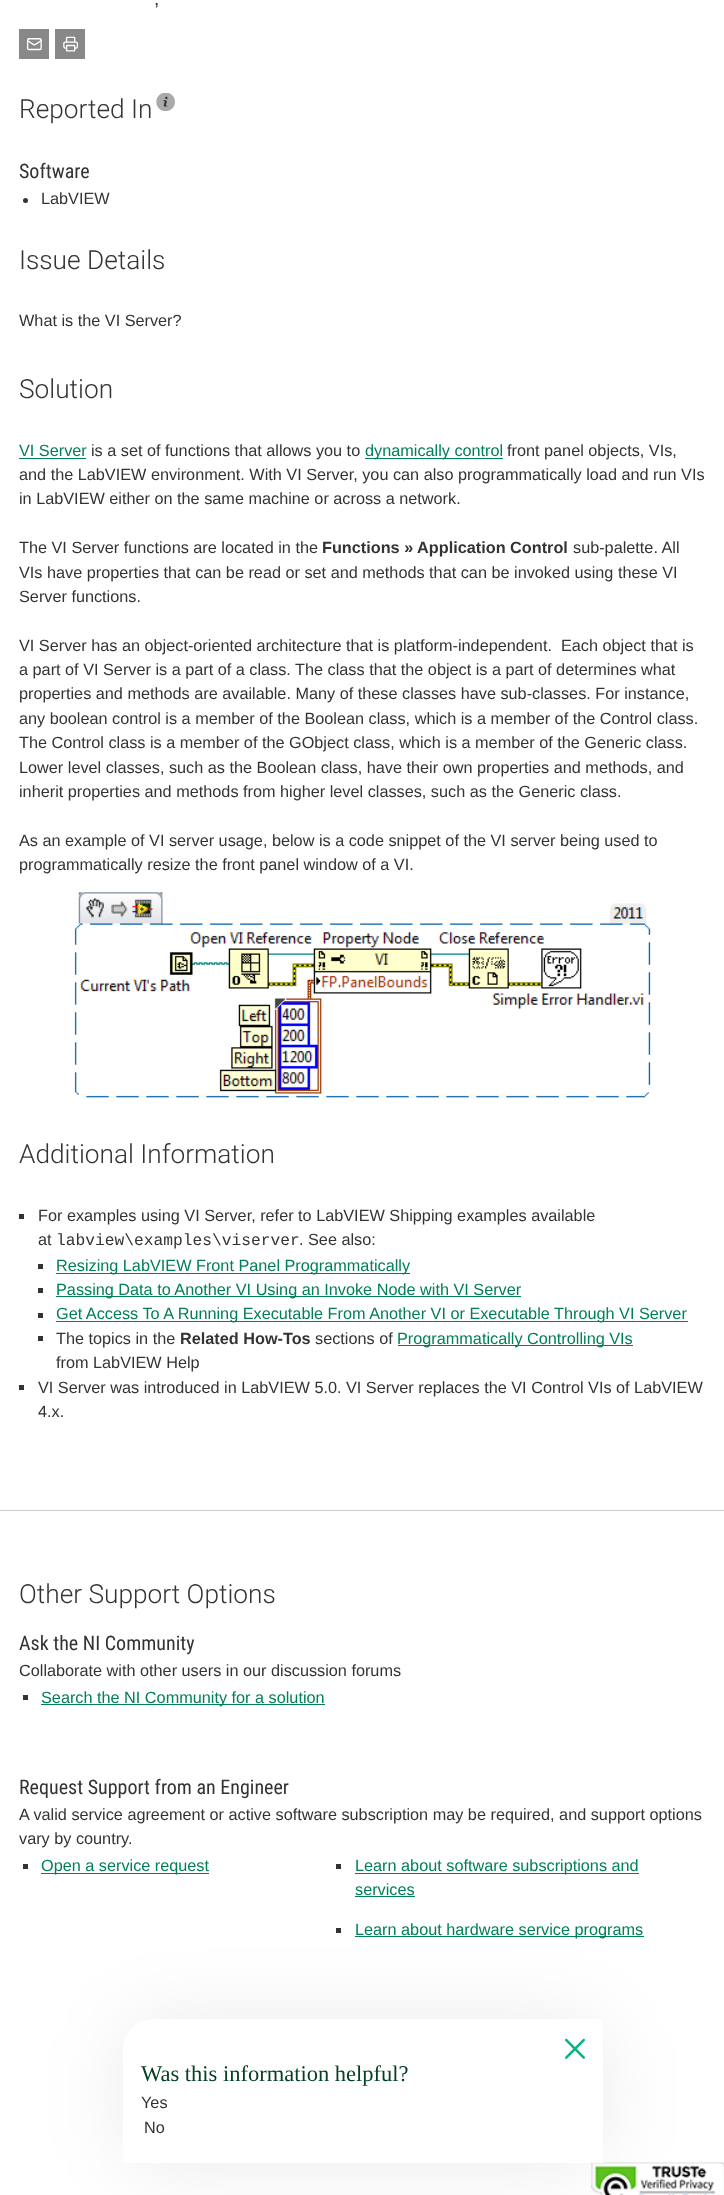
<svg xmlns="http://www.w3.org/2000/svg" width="724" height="2195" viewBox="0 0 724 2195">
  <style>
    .t1 { font: 19px Liberation Sans; fill: #333; }
    .t2 { font: 300 26.25px Roboto; fill: #333; }
    .t3 { font: 20px Roboto Condensed; fill: #333; }
    .t4 { font: 16.25px Liberation Sans; fill: #333; }
    .t5 { font: 16.25px Liberation Sans; fill: #008053; }
    .t6 { font: bold 16.25px Liberation Sans; fill: #333; }
    .t7 { font: 16.25px Liberation Mono; fill: #333; }
    .t8 { font: 22.5px Liberation Serif; fill: #044123; }
  </style>
  <rect width="100%" height="100%" fill="#fff"/>
  <text x="154" y="5" class="t1">,</text>
  <rect x="19" y="29" width="30" height="30" fill="#888"/>
  <image x="26" y="38" width="16" height="13" href="images/1.png"/>
  <rect x="55" y="29" width="30" height="30" fill="#888"/>
  <image x="63" y="36" width="16" height="16" href="images/2.png"/>
  <text x="19" y="118" class="t2">Reported In</text>
  <circle cx="166.5" cy="102.5" r="7.5" fill="#333"/>
  <image x="156" y="93" width="19" height="18" href="images/3.png"/>
  <text x="19" y="178" class="t3">Software</text>
  <circle cx="25.5" cy="200.5" r="2.5" fill="#333"/>
  <text x="41" y="204" class="t4">LabVIEW</text>
  <text x="19" y="269" class="t2">Issue Details</text>
  <text x="19" y="326" class="t4">What is the VI Server?</text>
  <text x="19" y="398" class="t2">Solution</text>
  <text x="19" y="456" class="t5">VI Server</text>
  <rect x="19" y="458" width="67" height="1" fill="#008053"/>
  <text x="91" y="456" class="t4">is a set of functions that allows you to</text>
  <rect x="365" y="458" width="138" height="1" fill="#008053"/>
  <text x="365" y="456" class="t5">dynamically control</text>
  <text x="507" y="456" class="t4">front panel objects, VIs,</text>
  <text x="19" y="480" class="t4">and the LabVIEW environment. With VI Server, you can also programmatically load and run VIs</text>
  <text x="19" y="504" class="t4">in LabVIEW either on the same machine or across a network.</text>
  <text x="19" y="553" class="t4">The VI Server functions are located in the</text>
  <text x="322" y="553" class="t6">Functions » Application Control</text>
  <text x="573" y="553" class="t4">sub-palette. All</text>
  <text x="19" y="578" class="t4">VIs have properties that can be read or set and methods that can be invoked using these VI</text>
  <text x="19" y="602" class="t4">Server functions.</text>
  <text x="19" y="651" class="t4" xml:space="preserve">VI Server has an object-oriented architecture that is platform-independent.  Each object that is</text>
  <text x="19" y="675" class="t4">a part of VI Server is a part of a class. The class that the object is a part of determines what</text>
  <text x="19" y="699" class="t4">properties and methods are available. Many of these classes have sub-classes. For instance,</text>
  <text x="19" y="724" class="t4">any boolean control is a member of the Boolean class, which is a member of the Control class.</text>
  <text x="19" y="748" class="t4">The Control class is a member of the GObject class, which is a member of the Generic class.</text>
  <text x="19" y="773" class="t4">Lower level classes, such as the Boolean class, have their own properties and methods, and</text>
  <text x="19" y="797" class="t4">inherit properties and methods from higher level classes, such as the Generic class.</text>
  <text x="19" y="846" class="t4">As an example of VI server usage, below is a code snippet of the VI server being used to</text>
  <text x="19" y="870" class="t4">programmatically resize the front panel window of a VI.</text>
  <image x="74" y="892" width="577" height="206" href="images/4.png"/>
  <text x="19" y="1163" class="t2">Additional Information</text>
  <rect x="19" y="1214" width="5" height="5" fill="#333"/>
  <text x="38" y="1221" class="t4">For examples using VI Server, refer to LabVIEW Shipping examples available</text>
  <text x="38" y="1245" class="t4">at</text>
  <text x="56" y="1245" class="t7">labview\examples\viserver</text>
  <text x="299" y="1245" class="t4">. See also:</text>
  <rect x="38" y="1264" width="5" height="5" fill="#333"/>
  <rect x="56" y="1273" width="354" height="1" fill="#008053"/>
  <text x="56" y="1271" class="t5">Resizing LabVIEW Front Panel Programmatically</text>
  <rect x="38" y="1288" width="5" height="5" fill="#333"/>
  <rect x="56" y="1296" width="465" height="1" fill="#008053"/>
  <text x="56" y="1295" class="t5">Passing Data to Another VI Using an Invoke Node with VI Server</text>
  <rect x="38" y="1313" width="5" height="5" fill="#333"/>
  <rect x="56" y="1321" width="632" height="1" fill="#008053"/>
  <text x="56" y="1319" class="t5">Get Access To A Running Executable From Another VI or Executable Through VI Server</text>
  <rect x="38" y="1336" width="5" height="5" fill="#333"/>
  <text x="56" y="1344" class="t4">The topics in the</text>
  <text x="180" y="1344" class="t6">Related How-Tos</text>
  <text x="315" y="1344" class="t4">sections of</text>
  <rect x="398" y="1345" width="235" height="1" fill="#008053"/>
  <text x="397" y="1344" class="t5">Programmatically Controlling VIs</text>
  <text x="56" y="1368" class="t4">from LabVIEW Help</text>
  <rect x="19" y="1385" width="5" height="5" fill="#333"/>
  <text x="38" y="1393" class="t4">VI Server was introduced in LabVIEW 5.0. VI Server replaces the VI Control VIs of LabVIEW</text>
  <text x="38" y="1417" class="t4">4.x.</text>
  <rect x="0" y="1510" width="724" height="1" fill="#ccc"/>
  <text x="19" y="1603" class="t2">Other Support Options</text>
  <text x="19" y="1650" class="t3">Ask the NI Community</text>
  <text x="19" y="1676" class="t4">Collaborate with other users in our discussion forums</text>
  <rect x="23" y="1695" width="5" height="5" fill="#333"/>
  <rect x="41" y="1704" width="284" height="1" fill="#008053"/>
  <text x="41" y="1703" class="t5">Search the NI Community for a solution</text>
  <text x="19" y="1794" class="t3">Request Support from an Engineer</text>
  <text x="19" y="1820" class="t4">A valid service agreement or active software subscription may be required, and support options</text>
  <text x="19" y="1844" class="t4">vary by country.</text>
  <rect x="23" y="1864" width="5" height="5" fill="#333"/>
  <rect x="41" y="1873" width="168" height="1" fill="#008053"/>
  <text x="41" y="1871" class="t5">Open a service request</text>
  <rect x="336" y="1864" width="5" height="5" fill="#333"/>
  <rect x="355" y="1873" width="284" height="1" fill="#008053"/>
  <text x="355" y="1871" class="t5">Learn about software subscriptions and</text>
  <text x="355" y="1895" class="t5">services</text>
  <rect x="355" y="1896" width="60" height="1" fill="#008053"/>
  <rect x="336" y="1928" width="5" height="5" fill="#333"/>
  <rect x="355" y="1936" width="289" height="1" fill="#008053"/>
  <text x="355" y="1935" class="t5">Learn about hardware service programs</text>
  <image x="591" y="2162" width="133" height="33" href="images/6.png"/>
  <rect x="123" y="2021" width="480" height="144" rx="30" fill="#00000014" filter="blur(40px)"/>
  <path d="M153 2019H603V2163H123V2049C123 2032.5 136.5 2019 153 2019Z" fill="#fff"/>
  <image x="565" y="2038" width="20" height="21" href="images/5.png"/>
  <text x="141" y="2081" class="t8">Was this information helpful?</text>
  <text x="141" y="2108" class="t4">Yes</text>
  <text x="144" y="2133" class="t4">No</text>
</svg>
